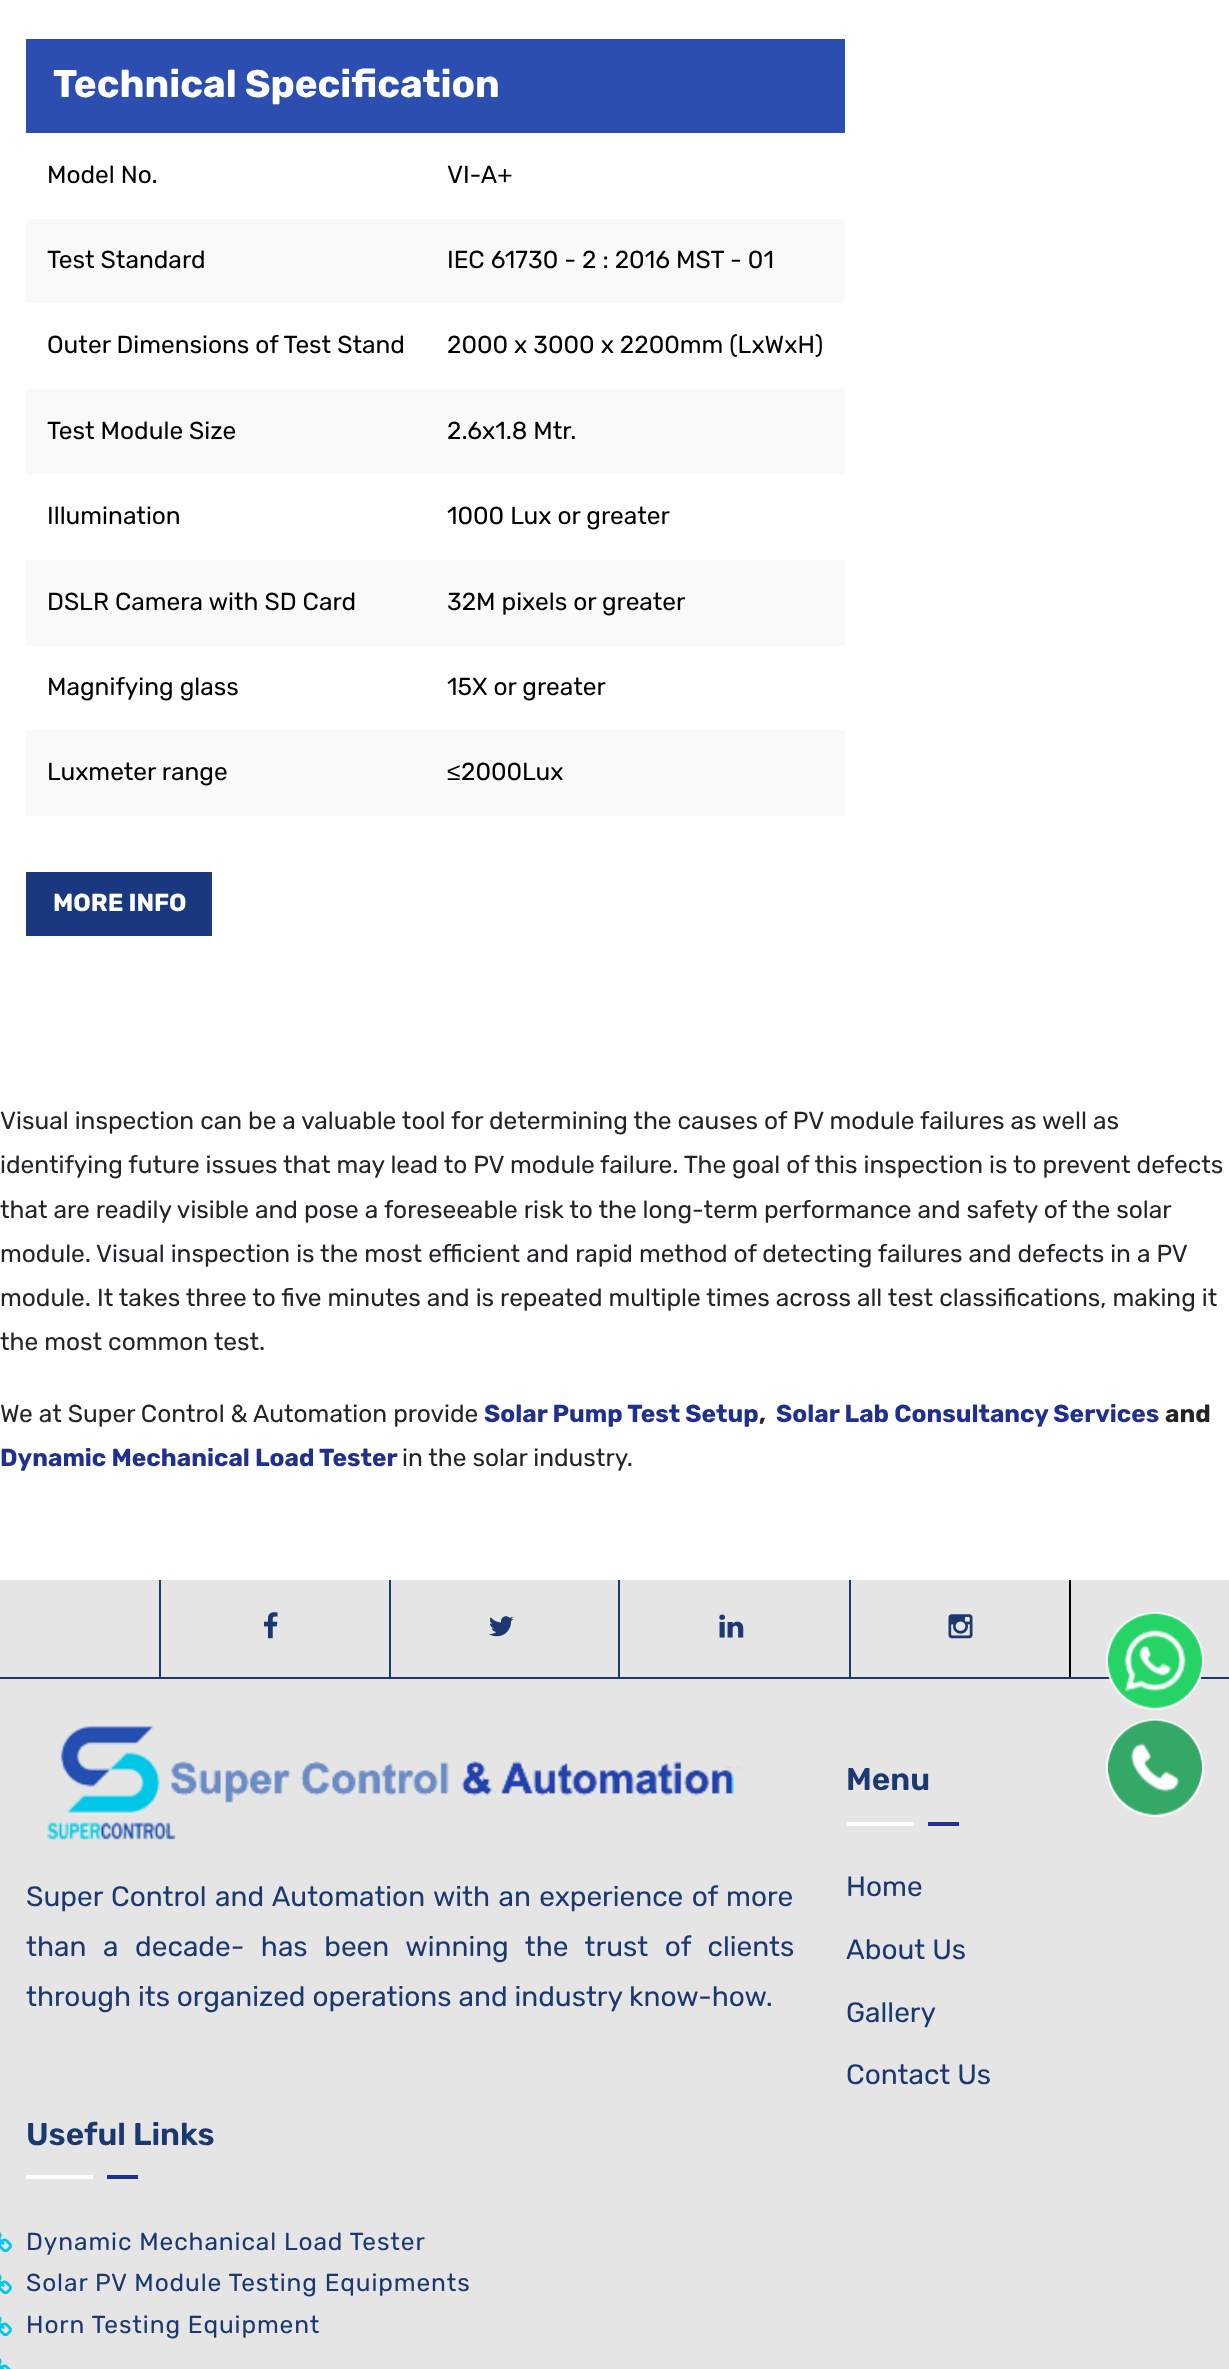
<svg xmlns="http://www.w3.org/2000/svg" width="1229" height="2369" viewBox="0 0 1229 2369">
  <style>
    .t1 { font: bold 38.5px Rubik; fill: #fff; }
    .t2 { font: 24.5px Rubik; fill: #000; }
    .t3 { font: 24.5px Liberation Sans; fill: #000; }
    .t4 { font: bold 24.5px Rubik; fill: #fff; }
    .t5 { font: 24.5px Rubik; fill: #212529; }
    .t6 { font: bold 24.5px Rubik; fill: #1f308f; }
    .t7 { font: bold 24.5px Rubik; fill: #212529; }
    .t8 { font: 28px Rubik; fill: #1b3870; }
    .t9 { font: 600 31.5px Rubik; fill: #1b3870; }
    .t10 { font: 24.5px Rubik; letter-spacing: 0.9px; fill: #1b3870; }
  </style>
  <rect width="100%" height="100%" fill="#fff"/>
  <rect x="26" y="39" width="819" height="94" fill="#2c4eb1"/>
  <text x="53" y="97" class="t1">Technical Specification</text>
  <text x="47" y="183" class="t2">Model No.</text>
  <text x="447" y="183" class="t2">VI-A+</text>
  <rect x="26" y="219" width="819" height="84" fill="#f9f9f9"/>
  <text x="47" y="268" class="t2">Test Standard</text>
  <text x="447" y="268" class="t2">IEC 61730 - 2 : 2016 MST - 01</text>
  <text x="47" y="353" class="t2">Outer Dimensions of Test Stand</text>
  <text x="447" y="353" class="t2">2000 x 3000 x 2200mm (LxWxH)</text>
  <rect x="26" y="389" width="819" height="85" fill="#f9f9f9"/>
  <text x="47" y="439" class="t2">Test Module Size</text>
  <text x="447" y="439" class="t2">2.6x1.8 Mtr.</text>
  <text x="47" y="524" class="t2">Illumination</text>
  <text x="447" y="524" class="t2">1000 Lux or greater</text>
  <rect x="26" y="560" width="819" height="86" fill="#f9f9f9"/>
  <text x="47" y="610" class="t2">DSLR Camera with SD Card</text>
  <text x="447" y="610" class="t2">32M pixels or greater</text>
  <text x="47" y="695" class="t2">Magnifying glass</text>
  <text x="447" y="695" class="t2">15X or greater</text>
  <rect x="26" y="730" width="819" height="86" fill="#f9f9f9"/>
  <text x="47" y="780" class="t2">Luxmeter range</text>
  <text x="447" y="780" class="t3">≤</text>
  <text x="461" y="780" class="t2">2000Lux</text>
  <rect x="26" y="872" width="186" height="64" fill="#193880"/>
  <text x="53" y="911" class="t4">MORE INFO</text>
  <text x="0" y="1129" class="t5">Visual inspection can be a valuable tool for determining the causes of PV module failures as well as</text>
  <text x="0" y="1173" class="t5">identifying future issues that may lead to PV module</text>
  <text x="600" y="1173" class="t5">failure. The goal of this inspection is to prevent defects</text>
  <text x="0" y="1218" class="t5">that are readily visible and pose a foreseeable risk to the long-term performance and safety of the solar</text>
  <text x="0" y="1262" class="t5">module.</text>
  <text x="96" y="1262" class="t5">Visual inspection is the most efficient and rapid method of detecting failures and defects in a PV</text>
  <text x="0" y="1306" class="t5">module. It takes three to five minutes and is repeated multiple times across all test classifications, making it</text>
  <text x="0" y="1350" class="t5">the most common test.</text>
  <text x="0" y="1422" class="t5">We at Super Control &amp; Automation provide</text>
  <text x="484" y="1422" class="t6">Solar Pump Test Setup</text>
  <text x="759" y="1422" class="t7">,</text>
  <text x="776" y="1422" class="t6">Solar Lab Consultancy Services</text>
  <text x="1165" y="1422" class="t7">and</text>
  <text x="0" y="1466" class="t6">Dynamic Mechanical Load Tester</text>
  <text x="402" y="1466" class="t5">in the solar industry.</text>
  <rect x="0" y="1580" width="1229" height="789" fill="#e5e5e5"/>
  <rect x="0" y="1677" width="1229" height="2" fill="#1b3870"/>
  <rect x="159" y="1580" width="2" height="97" fill="#1b3870"/>
  <image x="264" y="1612" width="14" height="27" href="images/1.png"/>
  <rect x="389" y="1580" width="2" height="97" fill="#1b3870"/>
  <image x="489" y="1616" width="25" height="21" href="images/2.png"/>
  <rect x="618" y="1580" width="2" height="97" fill="#1b3870"/>
  <image x="719" y="1614" width="25" height="24" href="images/3.png"/>
  <rect x="1069" y="1580" width="2" height="97" fill="#000"/>
  <rect x="849" y="1580" width="2" height="97" fill="#1b3870"/>
  <image x="948" y="1614" width="25" height="25" href="images/4.png"/>
  <image x="47" y="1725" width="694" height="116" href="images/5.png"/>
  <text x="26" y="1906" word-spacing="1.5" class="t8">Super Control and Automation with an experience of more</text>
  <text x="26" y="1956" word-spacing="9.75" class="t8">than a decade- has been winning the trust of clients</text>
  <text x="26" y="2006" class="t8">through its organized operations and industry know-how.</text>
  <text x="846" y="1790" class="t9">Menu</text>
  <rect x="847" y="1822" width="67" height="4" fill="#fff"/>
  <rect x="928" y="1822" width="31" height="4" fill="#1f308f"/>
  <text x="846" y="1896" class="t8">Home</text>
  <text x="846" y="1959" class="t8">About Us</text>
  <text x="846" y="2022" class="t8">Gallery</text>
  <text x="846" y="2084" class="t8">Contact Us</text>
  <text x="26" y="2145" class="t9">Useful Links</text>
  <rect x="26" y="2175" width="67" height="4" fill="#fff"/>
  <rect x="107" y="2175" width="31" height="4" fill="#1f308f"/>
  <image x="0" y="2232" width="12" height="21" href="images/6.png"/>
  <text x="26" y="2250" class="t10">Dynamic Mechanical Load Tester</text>
  <image x="0" y="2274" width="12" height="21" href="images/6.png"/>
  <text x="26" y="2291" class="t10">Solar PV Module Testing Equipments</text>
  <image x="0" y="2316" width="12" height="21" href="images/6.png"/>
  <text x="26" y="2333" class="t10">Horn Testing Equipment</text>
  <image x="0" y="2358" width="11" height="11" href="images/7.png"/>
  <circle cx="1155" cy="1661" r="49" fill="#fff"/>
  <image x="1107" y="1613" width="96" height="96" href="images/8.png"/>
  <circle cx="1155" cy="1768" r="49" fill="#fff"/>
  <image x="1107" y="1719" width="96" height="96" href="images/9.png"/>
</svg>
